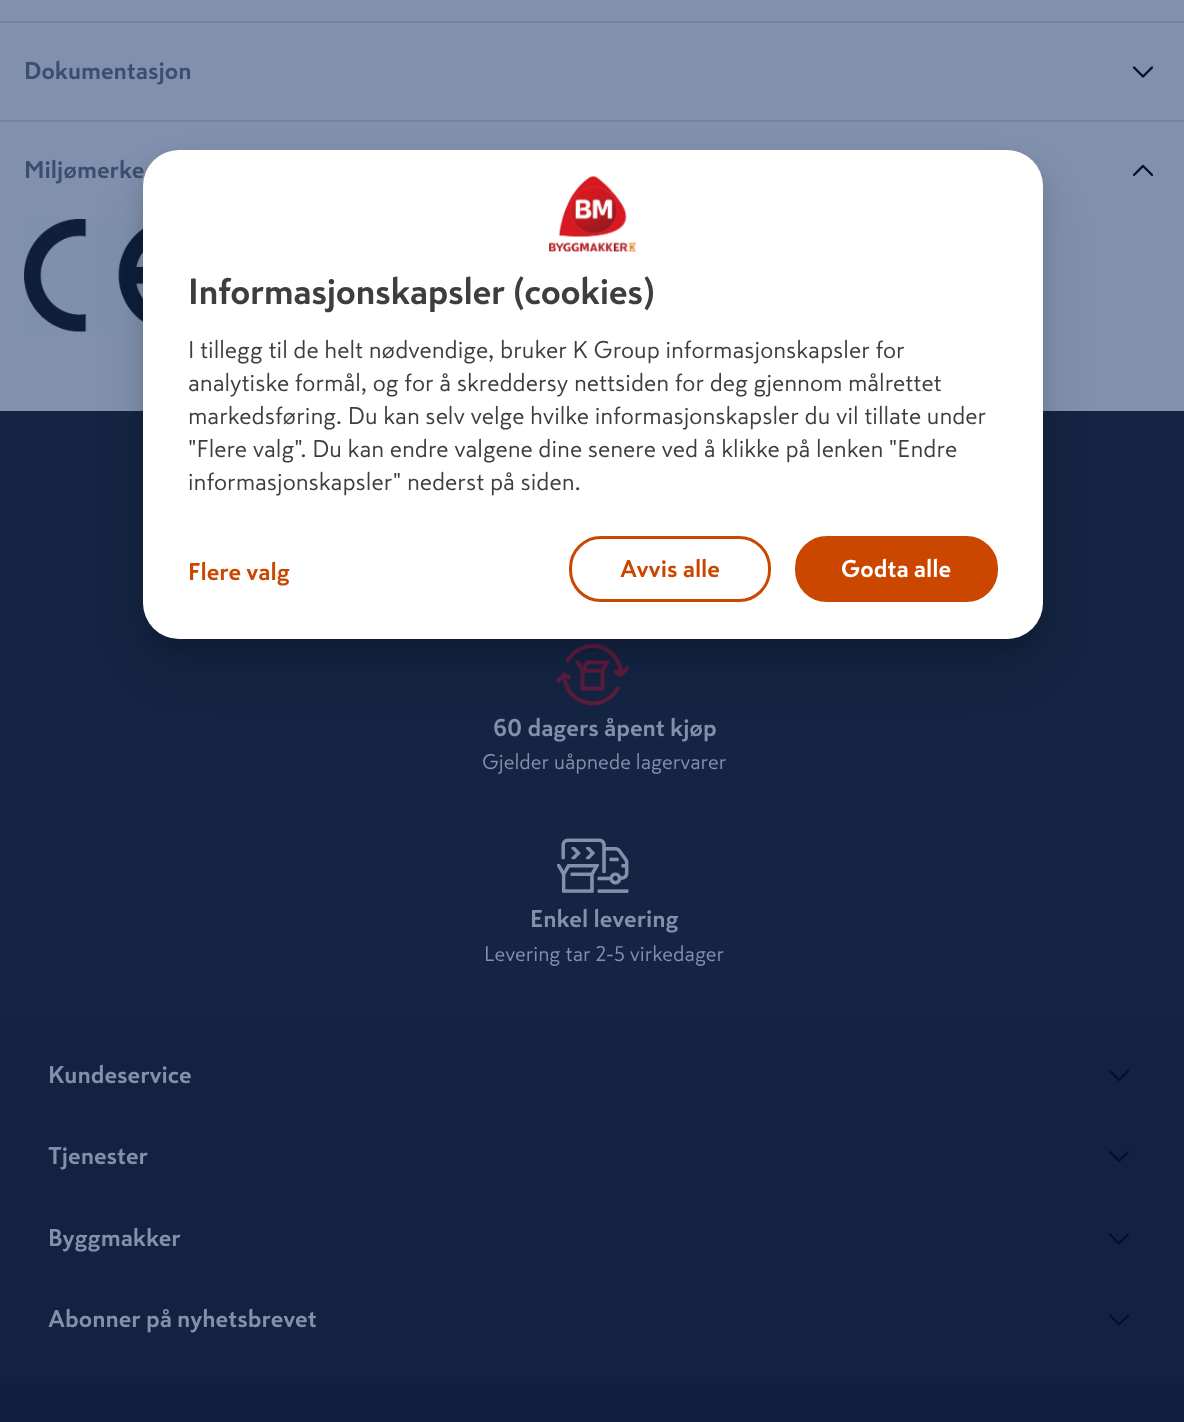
<svg xmlns="http://www.w3.org/2000/svg" width="1184" height="1422" viewBox="0 0 1184 1422">
  <style>
    .t1 { font: bold 24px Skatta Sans; fill: #3a4f6f; }
    .t2 { font: bold 24px Skatta Sans; fill: #8090ad; }
    .t3 { font: 21px Skatta Sans; fill: #8090ad; }
    .t4 { font: bold 36px Skatta Sans; letter-spacing: -0.35px; fill: #3e3e3e; }
    .t5 { font: 24px Skatta Sans; fill: #3e3e3e; }
    .t6 { font: bold 24px Skatta Sans; fill: #cb4700; }
    .t7 { font: bold 24px Skatta Sans; fill: #fff; }
  </style>
  <rect width="100%" height="100%" fill="#8090ad"/>
  <rect x="0" y="21" width="1184" height="2" fill="#7484a1"/>
  <text x="24" y="79" class="t1">Dokumentasjon</text>
  <image x="1132" y="66" width="22" height="12" href="images/1.png"/>
  <rect x="0" y="120" width="1184" height="2" fill="#7484a1"/>
  <text x="24" y="178" class="t1">Miljømerke</text>
  <image x="1132" y="164" width="22" height="12" href="images/2.png"/>
  <image x="24" y="219" width="119" height="113" href="images/3.png"/>
  <rect x="0" y="411" width="1184" height="611" fill="#142442"/>
  <image x="557" y="643" width="72" height="63" href="images/4.png"/>
  <text x="493" y="736" class="t2">60 dagers åpent kjøp</text>
  <text x="482" y="769" class="t3">Gjelder uåpnede lagervarer</text>
  <image x="557" y="838" width="72" height="55" href="images/5.png"/>
  <text x="530" y="927" class="t2">Enkel levering</text>
  <text x="484" y="961" class="t3">Levering tar 2-5 virkedager</text>
  <rect x="0" y="1022" width="1184" height="361" fill="#122240"/>
  <text x="48" y="1083" class="t2">Kundeservice</text>
  <image x="1109" y="1070" width="20" height="11" href="images/6.png"/>
  <text x="48" y="1164" class="t2">Tjenester</text>
  <image x="1109" y="1151" width="20" height="11" href="images/6.png"/>
  <text x="48" y="1246" class="t2">Byggmakker</text>
  <image x="1109" y="1233" width="20" height="12" href="images/7.png"/>
  <text x="48" y="1327" class="t2">Abonner på nyhetsbrevet</text>
  <image x="1109" y="1314" width="20" height="12" href="images/7.png"/>
  <rect x="0" y="1383" width="1184" height="39" fill="#10203e"/>
  <rect x="140" y="177" width="906" height="495" rx="39" fill="#00000014" filter="blur(24px)"/>
  <rect x="143" y="162" width="900" height="489" rx="36" fill="#0000001f" filter="blur(9px)"/>
  <rect x="143" y="150" width="900" height="489" rx="36" fill="#fff"/>
  <image x="549" y="176" width="87" height="76" href="images/8.png"/>
  <text x="188" y="304" class="t4">Informasjonskapsler (cookies)</text>
  <text x="188" y="358" class="t5">I tillegg til de helt nødvendige, bruker K Group informasjonskapsler for</text>
  <text x="188" y="391" class="t5">analytiske formål, og for å skreddersy nettsiden for deg gjennom målrettet</text>
  <text x="188" y="424" class="t5">markedsføring. Du kan selv velge hvilke informasjonskapsler du vil tillate under</text>
  <text x="188" y="457" class="t5">"Flere valg". Du kan endre valgene dine senere ved å klikke på lenken "Endre</text>
  <text x="188" y="490" class="t5">informasjonskapsler" nederst på siden.</text>
  <text x="188" y="580" class="t6">Flere valg</text>
  <rect x="570.5" y="537.5" width="199" height="63" rx="30.5" fill="none" stroke="#cb4700" stroke-width="3"/>
  <text x="620" y="577" class="t6">Avvis alle</text>
  <rect x="796.5" y="537.5" width="200" height="63" rx="30.5" fill="#cb4700" stroke="#cb4700" stroke-width="3"/>
  <text x="841" y="577" class="t7">Godta alle</text>
</svg>
